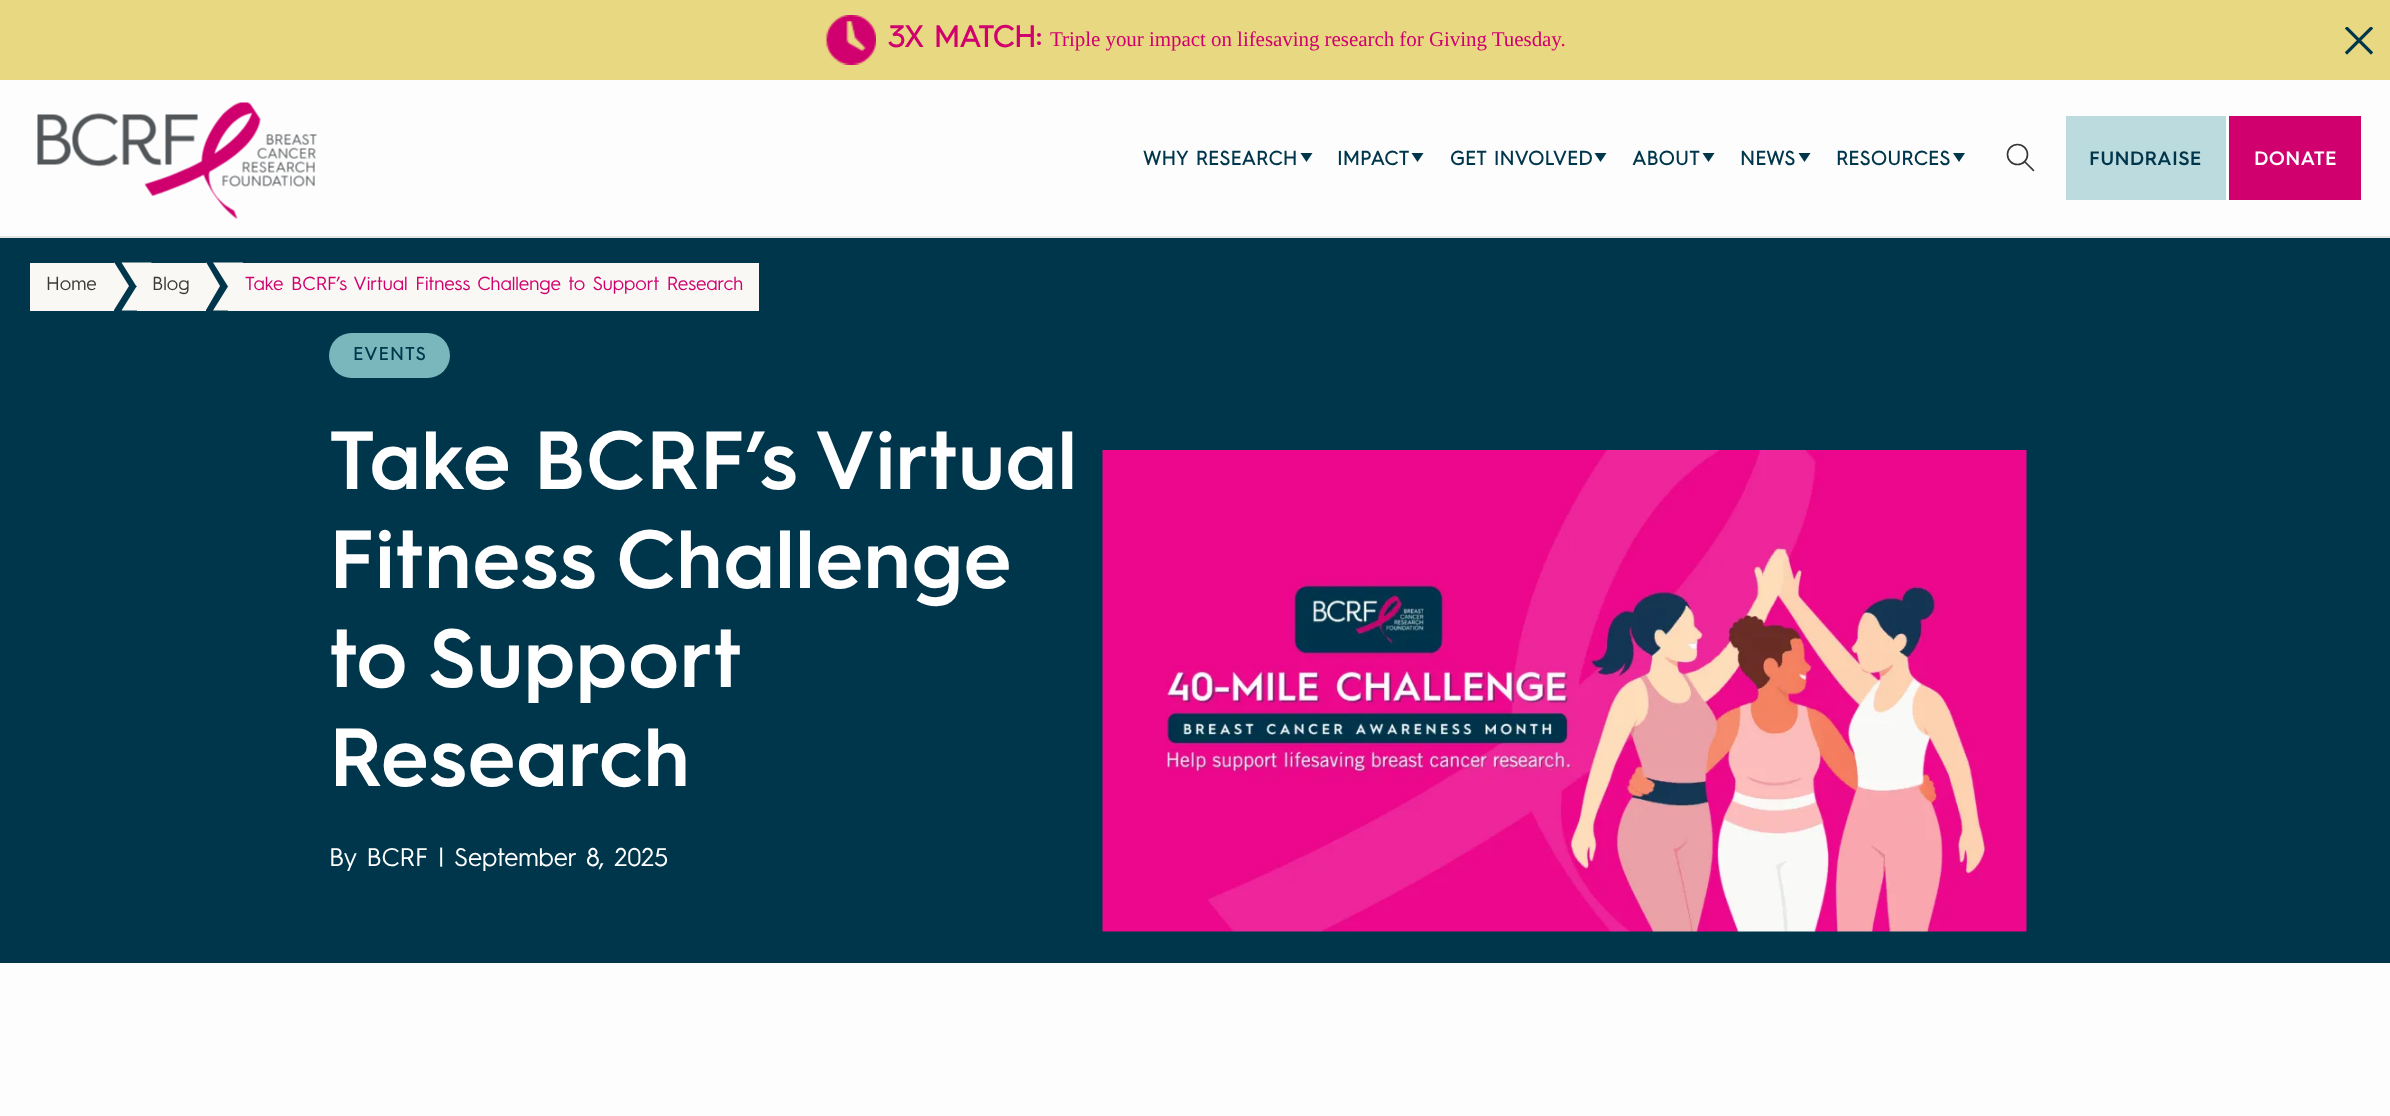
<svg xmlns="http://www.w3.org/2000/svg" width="2390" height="1116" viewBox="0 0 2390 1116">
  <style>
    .t1 { font: bold 30px 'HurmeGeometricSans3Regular'; letter-spacing: -0.05px; fill: #d0006f; }
    .t2 { font: 21px Liberation Serif; letter-spacing: -0.05px; fill: #d0006f; }
    .t3 { font: bold 19.5px 'HurmeGeometricSans3Regular'; letter-spacing: 0.5px; fill: #00364b; }
    .t4 { font: 600 19.5px 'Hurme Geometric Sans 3'; letter-spacing: 0.25px; fill: #00364b; }
    .t5 { font: 600 19.5px 'Hurme Geometric Sans 3'; letter-spacing: 0.25px; fill: #fff; }
    .t6 { font: 18.95px 'HurmeGeometricSans3Regular'; letter-spacing: -0.05px; fill: #3a3a3a; }
    .t7 { font: 18.95px 'HurmeGeometricSans3Regular'; letter-spacing: -0.05px; fill: #d0006f; }
    .t8 { font: bold 18px 'HurmeGeometricSans3Regular'; letter-spacing: 1.5px; fill: #00364b; }
    .t9 { font: 600 82.5px 'Hurme Geometric Sans 3'; fill: #fff; }
    .t10 { font: 25.5px 'HurmeGeometricSans3Regular'; letter-spacing: -0.1px; fill: #fff; }
  </style>
  <rect width="100%" height="100%" fill="#fdfdfd"/>
  <rect x="0" y="0" width="2390" height="80" fill="#e8d881"/>
  <image x="825" y="15" width="51" height="50" href="images/1.png"/>
  <text x="888" y="47" class="t1">3X MATCH:</text>
  <text x="1050" y="46" class="t2">Triple your impact on lifesaving research for Giving Tuesday.</text>
  <image x="2345" y="27" width="28" height="28" href="images/2.png"/>
  <rect x="0" y="236" width="2390" height="2" fill="#e5e5e5"/>
  <image x="37" y="102" width="280" height="117" href="images/3.png"/>
  <text x="1143" y="165" class="t3">WHY RESEARCH</text>
  <path d="M1300.5 153H1312.5L1306.5 162Z" fill="#00364b"/>
  <text x="1337" y="165" class="t3">IMPACT</text>
  <path d="M1411.5 153H1423.5L1417.5 162Z" fill="#00364b"/>
  <text x="1450" y="165" class="t3">GET INVOLVED</text>
  <path d="M1594.5 153H1606.5L1600.5 162Z" fill="#00364b"/>
  <text x="1632" y="165" class="t3">ABOUT</text>
  <path d="M1702.5 153H1714.5L1708.5 162Z" fill="#00364b"/>
  <text x="1740" y="165" class="t3">NEWS</text>
  <path d="M1798.5 153H1810.5L1804.5 162Z" fill="#00364b"/>
  <text x="1836" y="165" class="t3">RESOURCES</text>
  <path d="M1953 153H1965L1959 162Z" fill="#00364b"/>
  <path d="M2024.5 161.5L2033.5 170.5" fill="none" stroke="#343434" stroke-width="1.6" stroke-linecap="round"/>
  <circle cx="2017.5" cy="154.5" r="10" fill="none" stroke="#343434" stroke-width="1.6"/>
  <rect x="2066" y="116" width="160" height="84" fill="#bcdbde"/>
  <text x="2089" y="165" class="t4">FUNDRAISE</text>
  <rect x="2229" y="116" width="132" height="84" fill="#d0006f"/>
  <text x="2254" y="165" class="t5">DONATE</text>
  <rect x="0" y="238" width="2390" height="725" fill="#00364b"/>
  <rect x="30" y="263" width="84" height="48" fill="#f9f8f4"/>
  <text x="46" y="290" class="t6">Home</text>
  <path d="M114 310V262L129 286Z" fill="#f9f8f4"/>
  <rect x="137" y="263" width="69" height="48" fill="#f9f8f4"/>
  <path d="M121.5 262.5H151.5L136.5 286.5Z" fill="#f9f8f4"/>
  <path d="M151.5 310.5H121.5L136.5 286.5Z" fill="#f9f8f4"/>
  <text x="152" y="290" class="t6">Blog</text>
  <path d="M206 310V262L220 286Z" fill="#f9f8f4"/>
  <rect x="228" y="263" width="531" height="48" fill="#f9f8f4"/>
  <path d="M213 262.5H243L228 286.5Z" fill="#f9f8f4"/>
  <path d="M243 310.5H213L228 286.5Z" fill="#f9f8f4"/>
  <text x="245" y="290" class="t7">Take BCRF’s Virtual Fitness Challenge to Support Research</text>
  <rect x="329" y="333" width="121" height="45" rx="22.5" fill="#79b7bc"/>
  <text x="353" y="360" class="t8">EVENTS</text>
  <text x="329" y="489" class="t9">Take BCRF’s Virtual</text>
  <text x="329" y="588" class="t9">Fitness Challenge</text>
  <text x="329" y="687" word-spacing="-1" class="t9">to Support</text>
  <text x="329" y="786" class="t9">Research</text>
  <text x="329" y="866" class="t10">By BCRF | September 8, 2025</text>
  <image x="1102" y="450" width="925" height="482" href="images/4.png"/>
</svg>
